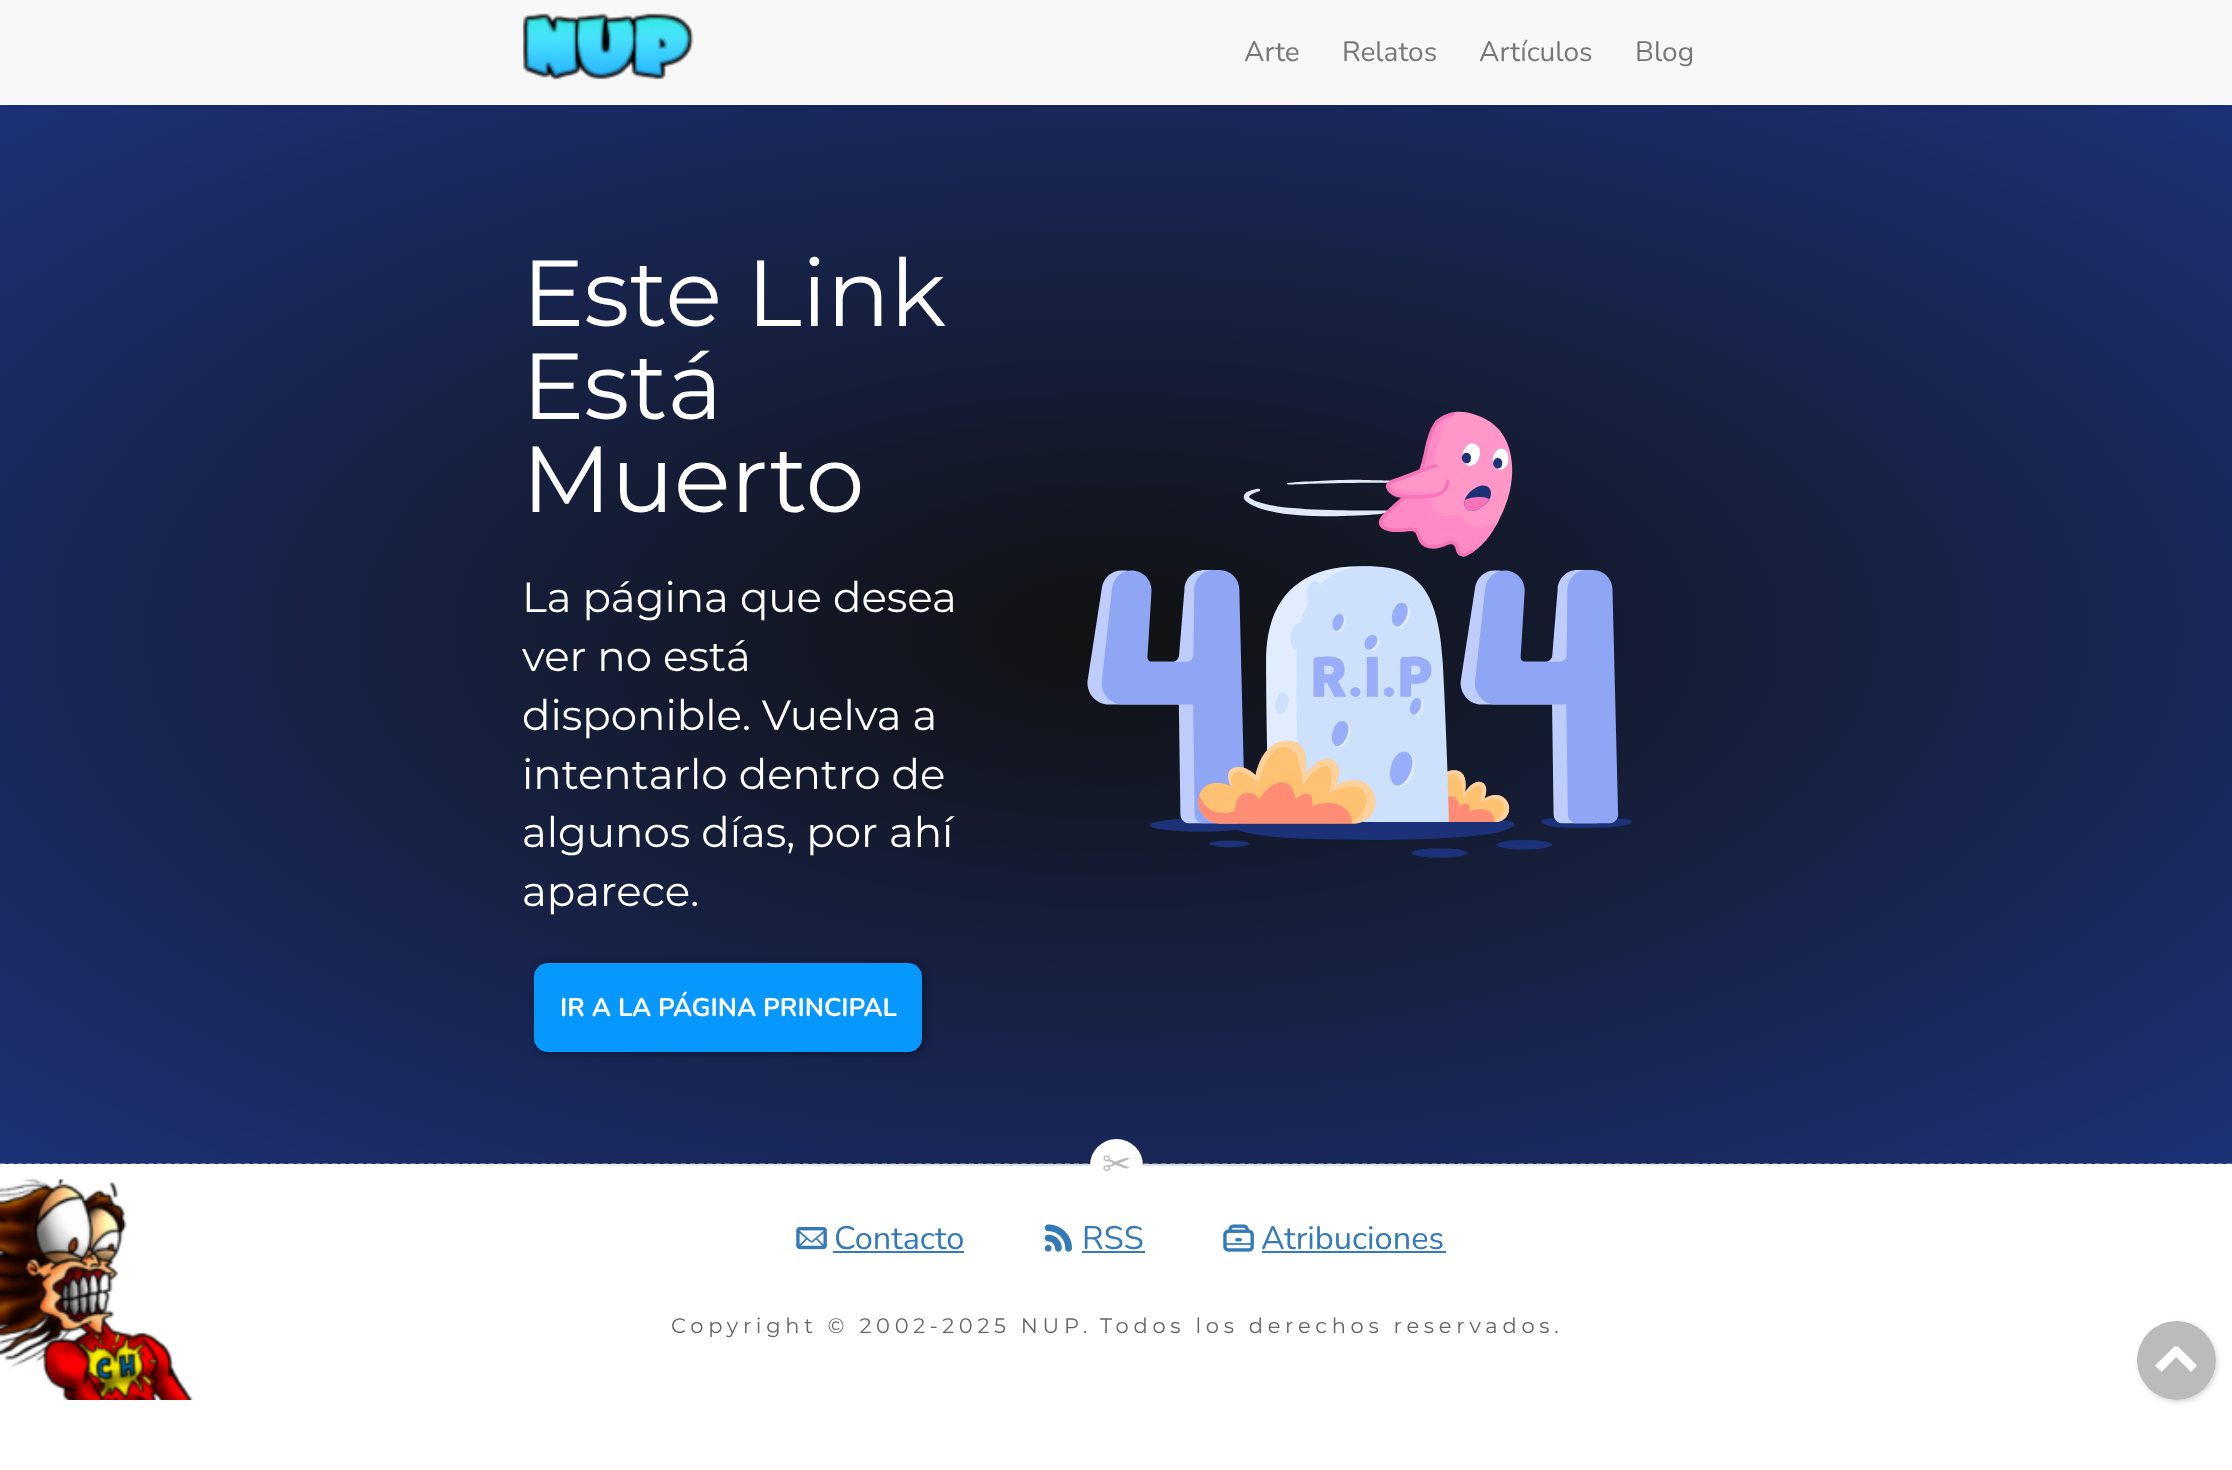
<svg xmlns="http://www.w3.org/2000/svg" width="2232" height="1470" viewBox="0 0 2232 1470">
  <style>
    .t1 { font: 200 28px Nunito; fill: #777; }
    .t2 { font: 100 93.5px Montserrat; fill: #fff; }
    .t3 { font: 100 42px Montserrat; fill: #fff; }
    .t4 { font: 200 25.7px 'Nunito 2'; fill: #fff; }
    .t5 { font: 35px DejaVu Sans; fill: #bbb; }
    .t6 { font: 200 32.5px Nunito; fill: #337ab7; }
    .t7 { font: 100 21px Montserrat; letter-spacing: 4.7px; fill: #666; }
  </style>
  <defs>
    <radialGradient id="g1" gradientUnits="userSpaceOnUse" cx="0" cy="0" r="1" gradientTransform="matrix(1579 0 0 749 1117 634)"><stop offset="0" stop-color="#111"/><stop offset="1" stop-color="#1c3177"/></radialGradient>
    <linearGradient id="g2" gradientUnits="userSpaceOnUse" x1="0" y1="1165" x2="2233" y2="1165"><stop offset="0" stop-color="#fff"/><stop offset="0.05" stop-color="#fff"/><stop offset="0.5" stop-color="#bbb"/><stop offset="0.95" stop-color="#fff"/><stop offset="1" stop-color="#fff"/></linearGradient>
    <clipPath id="clip1"><path d="M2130 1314H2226V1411H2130ZM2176.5 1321C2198.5 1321 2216 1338.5 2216 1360.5C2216 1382.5 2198.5 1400 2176.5 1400C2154.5 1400 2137 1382.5 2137 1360.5C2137 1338.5 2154.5 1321 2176.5 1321Z" clip-rule="evenodd"/></clipPath>
  </defs>
  <rect width="100%" height="100%" fill="#fff"/>
  <rect x="0" y="105" width="2232" height="1059" fill="url(#g1)"/>
  <rect x="0" y="2" width="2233" height="105" fill="#0000001a" filter="blur(2.5px)"/>
  <rect x="0" y="0" width="2232" height="105" fill="#f8f8f8"/>
  <image x="522" y="13" width="172" height="67" href="images/1.png"/>
  <text x="1244" y="61" class="t1">Arte</text>
  <text x="1342" y="61" class="t1">Relatos</text>
  <text x="1479" y="61" class="t1">Artículos</text>
  <text x="1635" y="61" class="t1">Blog</text>
  <text x="522" y="326" class="t2">Este Link</text>
  <text x="522" y="419" class="t2">Está</text>
  <text x="522" y="512" class="t2">Muerto</text>
  <text x="522" y="612" class="t3">La página que desea</text>
  <text x="522" y="671" class="t3">ver no está</text>
  <text x="522" y="730" class="t3">disponible. Vuelva a</text>
  <text x="522" y="789" class="t3">intentarlo dentro de</text>
  <text x="522" y="847" class="t3">algunos días, por ahí</text>
  <text x="522" y="906" class="t3">aparece.</text>
  <image x="1087" y="411" width="545" height="447" href="images/2.png"/>
  <rect x="536" y="964" width="388" height="90" rx="14" fill="#00000066" filter="blur(3.5px)"/>
  <rect x="534" y="963" width="388" height="89" rx="14" fill="#0798ff"/>
  <text x="560" y="1016" class="t4">IR A LA PÁGINA PRINCIPAL</text>
  <image x="0" y="1179" width="193" height="221" href="images/3.png"/>
  <path d="M0 1164.5H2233" fill="none" stroke="#bbb" stroke-width="1.8" stroke-dasharray="5.25 3.48"/>
  <rect x="0" y="1164" width="2232" height="2" fill="url(#g2)"/>
  <rect x="193" y="1164" width="1847" height="2" fill="#ffffff80"/>
  <circle cx="1116.5" cy="1165.5" r="26.5" fill="#fff"/>
  <text x="1102" y="1176" class="t5">✂</text>
  <image x="796" y="1227" width="31" height="23" href="images/4.png"/>
  <text x="834" y="1249" class="t6">Contacto</text>
  <rect x="833" y="1251" width="131" height="2" fill="#337ab7"/>
  <image x="1044" y="1224" width="28" height="28" href="images/5.png"/>
  <text x="1082" y="1249" class="t6">RSS</text>
  <rect x="1082" y="1251" width="63" height="2" fill="#337ab7"/>
  <image x="1223" y="1224" width="31" height="28" href="images/6.png"/>
  <text x="1261" y="1249" class="t6">Atribuciones</text>
  <rect x="1262" y="1251" width="184" height="2" fill="#337ab7"/>
  <text x="671" y="1333" class="t7">Copyright © 2002-2025 NUP.</text>
  <text x="1100" y="1333" class="t7">Todos los derechos reservados.</text>
  <g clip-path="url(#clip1)">
    <rect x="2139" y="1323" width="78" height="79" rx="39" fill="#d3d3d3" filter="blur(2.5px)"/>
  </g>
  <circle cx="2176.5" cy="1360.5" r="39.5" fill="#78787880"/>
  <path d="M2155 1365.5L2175 1346L2181 1352L2161.5 1372Z" fill="#fff"/>
  <path d="M2171 1352L2177.5 1346L2197 1365.5L2191 1372Z" fill="#fff"/>
</svg>
